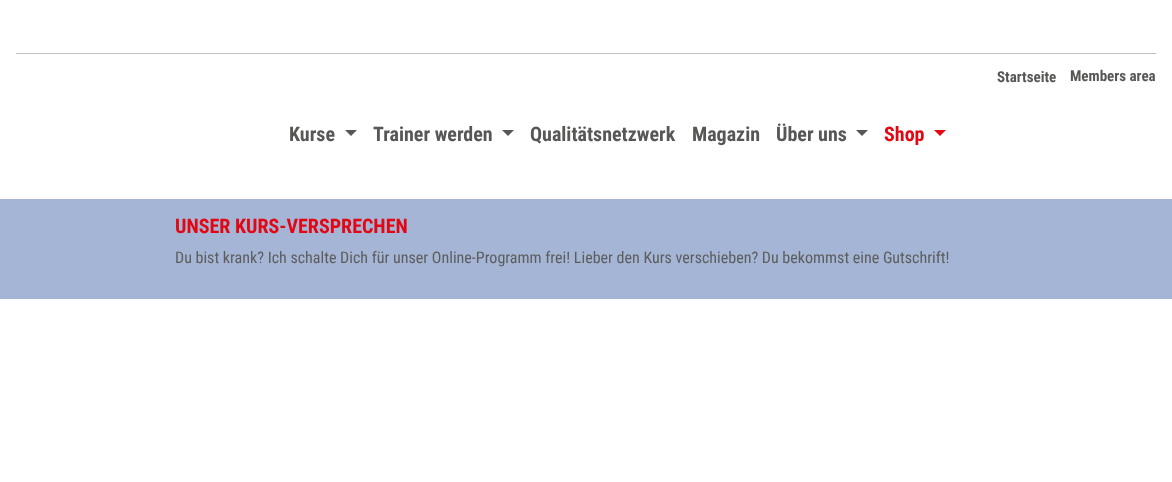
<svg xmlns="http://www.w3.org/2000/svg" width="1172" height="482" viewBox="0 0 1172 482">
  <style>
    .t1 { font: bold 15px Roboto Condensed; fill: #575756; }
    .t2 { font: bold 20px Roboto Condensed; fill: #575756; }
    .t3 { font: bold 20px Roboto Condensed; fill: #e30613; }
    .t4 { font: 16px Roboto Condensed; fill: #5d5d5d; }
  </style>
  <rect width="100%" height="100%" fill="#fff"/>
  <rect x="16" y="53" width="1140" height="1" fill="#c0c0c0"/>
  <text x="997" y="82" class="t1">Startseite</text>
  <text x="1070" y="81" class="t1">Members area</text>
  <text x="289" y="141" class="t2">Kurse</text>
  <path d="M345 130H357L351 136Z" fill="#575756"/>
  <text x="373" y="141" class="t2">Trainer werden</text>
  <path d="M502 130H514L508 136Z" fill="#575756"/>
  <text x="530" y="141" class="t2">Qualitätsnetzwerk</text>
  <text x="692" y="141" class="t2">Magazin</text>
  <text x="776" y="141" class="t2">Über uns</text>
  <path d="M856 130H868L862 136Z" fill="#575756"/>
  <text x="884" y="141" class="t3">Shop</text>
  <path d="M934 130H946L940 136Z" fill="#e30613"/>
  <rect x="0" y="199" width="1172" height="100" fill="#a4b5d5"/>
  <text x="175" y="233" class="t3">UNSER KURS-VERSPRECHEN</text>
  <text x="175" y="263" class="t4">Du bist krank? Ich schalte Dich für unser Online-Programm frei! Lieber den Kurs verschieben? Du bekommst eine Gutschrift!</text>
</svg>
